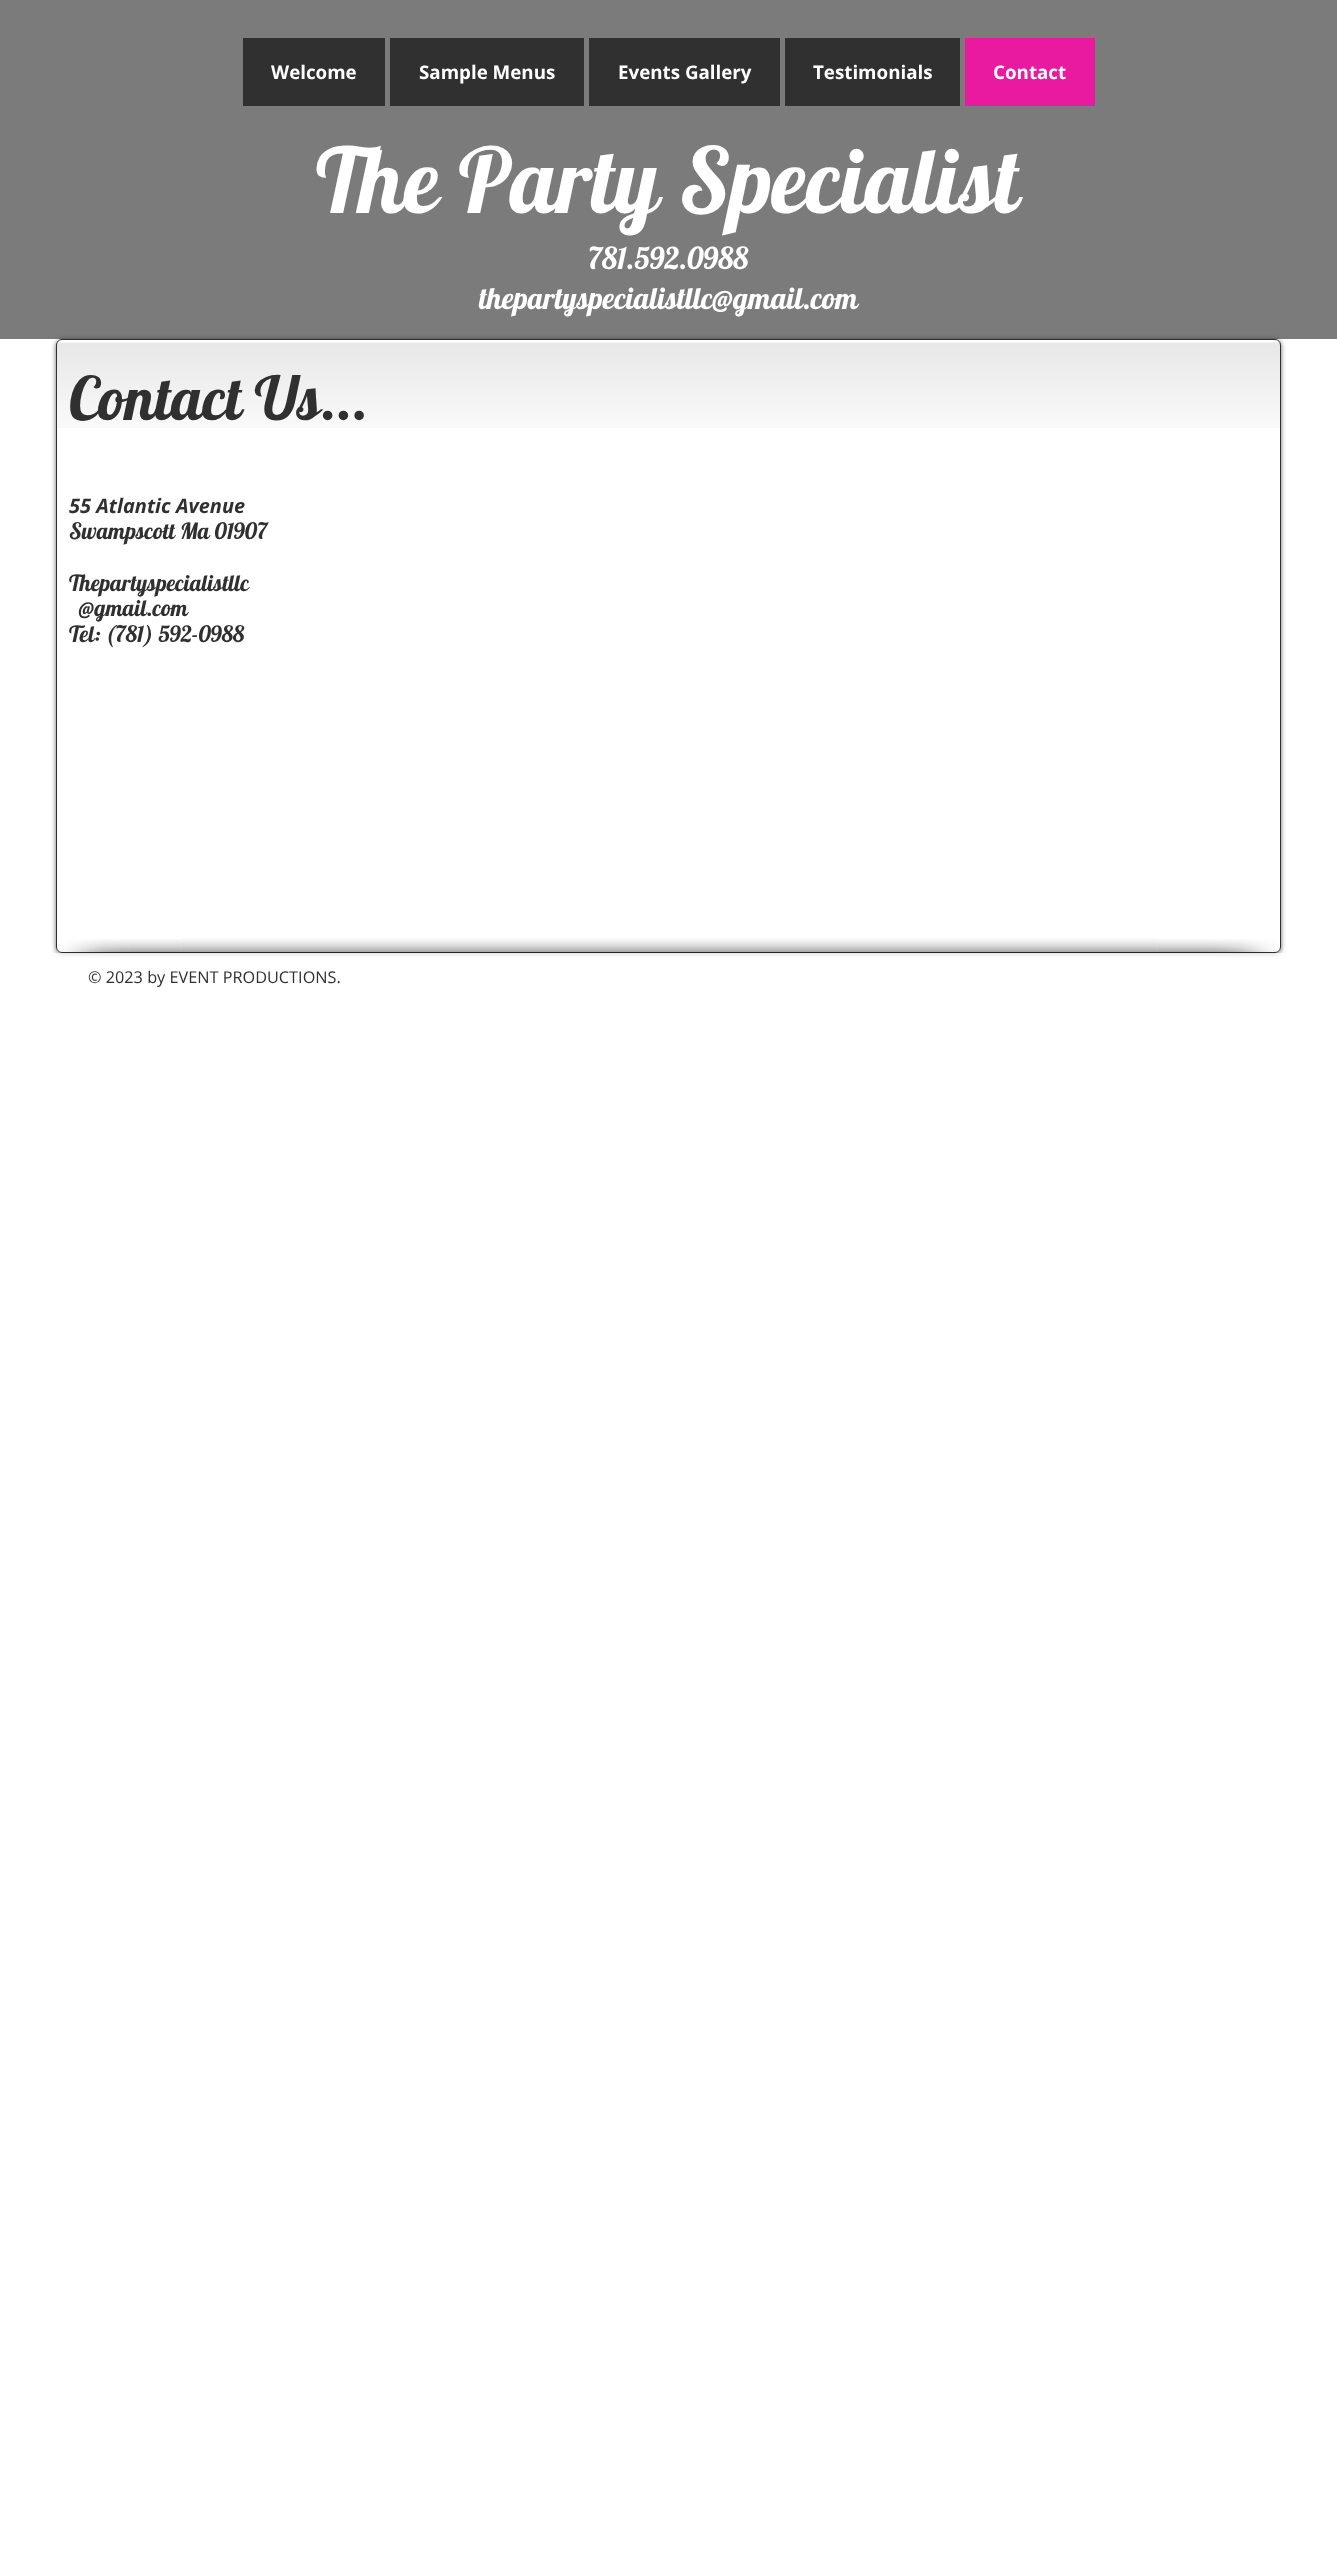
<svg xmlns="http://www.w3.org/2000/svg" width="1337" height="2552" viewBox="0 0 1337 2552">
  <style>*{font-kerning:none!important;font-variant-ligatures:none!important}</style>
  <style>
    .t1 { font: bold 18.75px Open Sans; fill: #fff; }
    .t2 { font: 90px Lobster; fill: #fff; }
    .t3 { font: 30px Lobster; fill: #fff; }
    .t4 { font: 60px Lobster; fill: #303030; }
    .t5 { font: italic bold 20px Open Sans; fill: #303030; }
    .t6 { font: 22.5px Lobster; fill: #303030; }
    .t7 { font: 16.25px Open Sans; fill: #303030; }
  </style>
  <rect width="100%" height="100%" fill="#fff"/>
  <rect x="0" y="0" width="1337" height="339" fill="#7b7b7b"/>
  <rect x="243" y="38" width="142" height="68" fill="#303030"/>
  <text x="271" y="79" class="t1">Welcome</text>
  <rect x="390" y="38" width="194" height="68" fill="#303030"/>
  <text x="419" y="79" class="t1">Sample Menus</text>
  <rect x="589" y="38" width="191" height="68" fill="#303030"/>
  <text x="618" y="79" class="t1">Events Gallery</text>
  <rect x="785" y="38" width="175" height="68" fill="#303030"/>
  <text x="813" y="79" class="t1">Testimonials</text>
  <rect x="965" y="38" width="130" height="68" fill="#ea1aa0"/>
  <text x="993" y="79" class="t1">Contact</text>
  <text x="316" y="213" class="t2">The Party Specialist</text>
  <text x="588" y="269" class="t3">781.592.0988</text>
  <text x="479" y="309" class="t3">thepartyspecialistllc@gmail.com</text>
  <rect x="56" y="340" width="1225" height="614" rx="6" fill="#00000099" filter="blur(2.5px)"/>
  <rect x="56" y="339" width="1225" height="614" rx="6" fill="#fff"/>
  <image x="56" y="342" width="1225" height="86" href="images/1.png"/>
  <rect x="56.5" y="339.5" width="1224" height="613" rx="5.5" fill="none" stroke="#303030"/>
  <text x="69" y="420" class="t4">Contact Us...</text>
  <text x="69" y="513" class="t5">55 Atlantic Avenue</text>
  <text x="69" y="539" class="t6">Swampscott Ma 01907</text>
  <text x="69" y="591" class="t6">Thepartyspecialistllc</text>
  <text x="79" y="616" class="t6">@gmail.com</text>
  <text x="69" y="642" class="t6">Tel: (781) 592-0988</text>
  <rect x="53" y="953" width="1231" height="6" fill="#ffffffbf"/>
  <image x="61" y="939" width="121" height="14" href="images/2.png"/>
  <image x="181" y="938" width="976" height="15" href="images/3.png"/>
  <image x="1156" y="939" width="121" height="14" href="images/4.png"/>
  <text x="88" y="983" class="t7">© 2023 by EVENT PRODUCTIONS.</text>
</svg>
